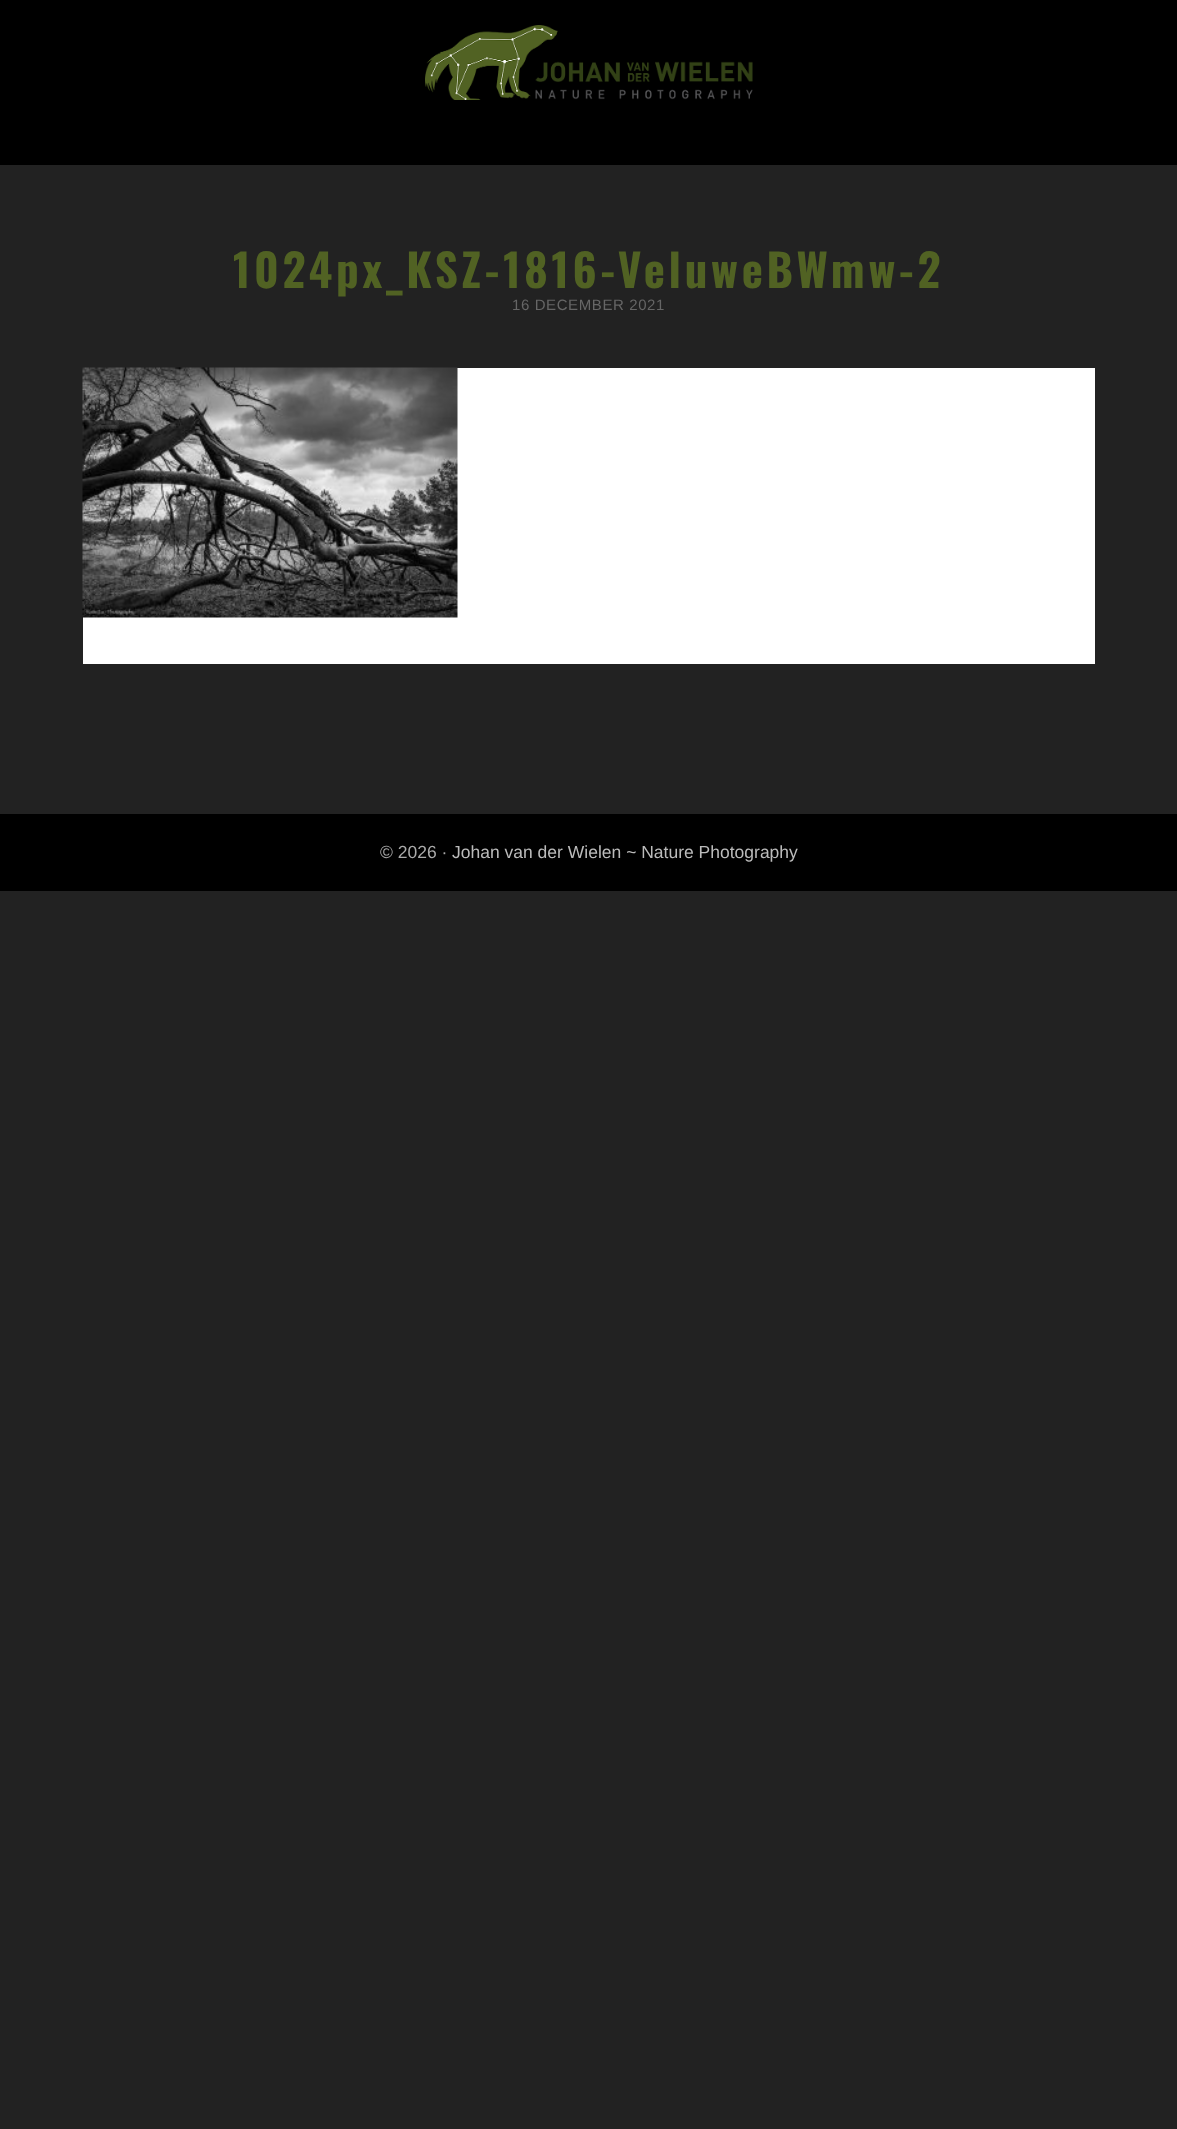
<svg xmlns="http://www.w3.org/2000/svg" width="1177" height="2129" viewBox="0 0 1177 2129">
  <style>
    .t1 { font: bold 45px Oswald; letter-spacing: 3.75px; fill: #516223; }
    .t2 { font: 15px Liberation Sans; letter-spacing: 0.6px; fill: #666; }
    .t3 { font: 17.5px Liberation Sans; fill: #aaa; }
    .t4 { font: 17.5px Liberation Sans; fill: #bbb; }
  </style>
  <rect width="100%" height="100%" fill="#222"/>
  <rect x="0" y="0" width="1177" height="165" fill="#000"/>
  <image x="425" y="25" width="328" height="75" href="images/1.png"/>
  <text x="233" y="288" class="t1">1024px_KSZ-1816-VeluweBWmw-2</text>
  <text x="512" y="310" class="t2">16 DECEMBER 2021</text>
  <rect x="83" y="368" width="1012" height="296" fill="#fff"/>
  <image x="82" y="367" width="376" height="251" href="images/2.png"/>
  <rect x="0" y="814" width="1177" height="77" fill="#000"/>
  <text x="380" y="858" class="t3">© 2026 ·</text>
  <text x="452" y="858" class="t4">Johan van der Wielen ~ Nature Photography</text>
</svg>
